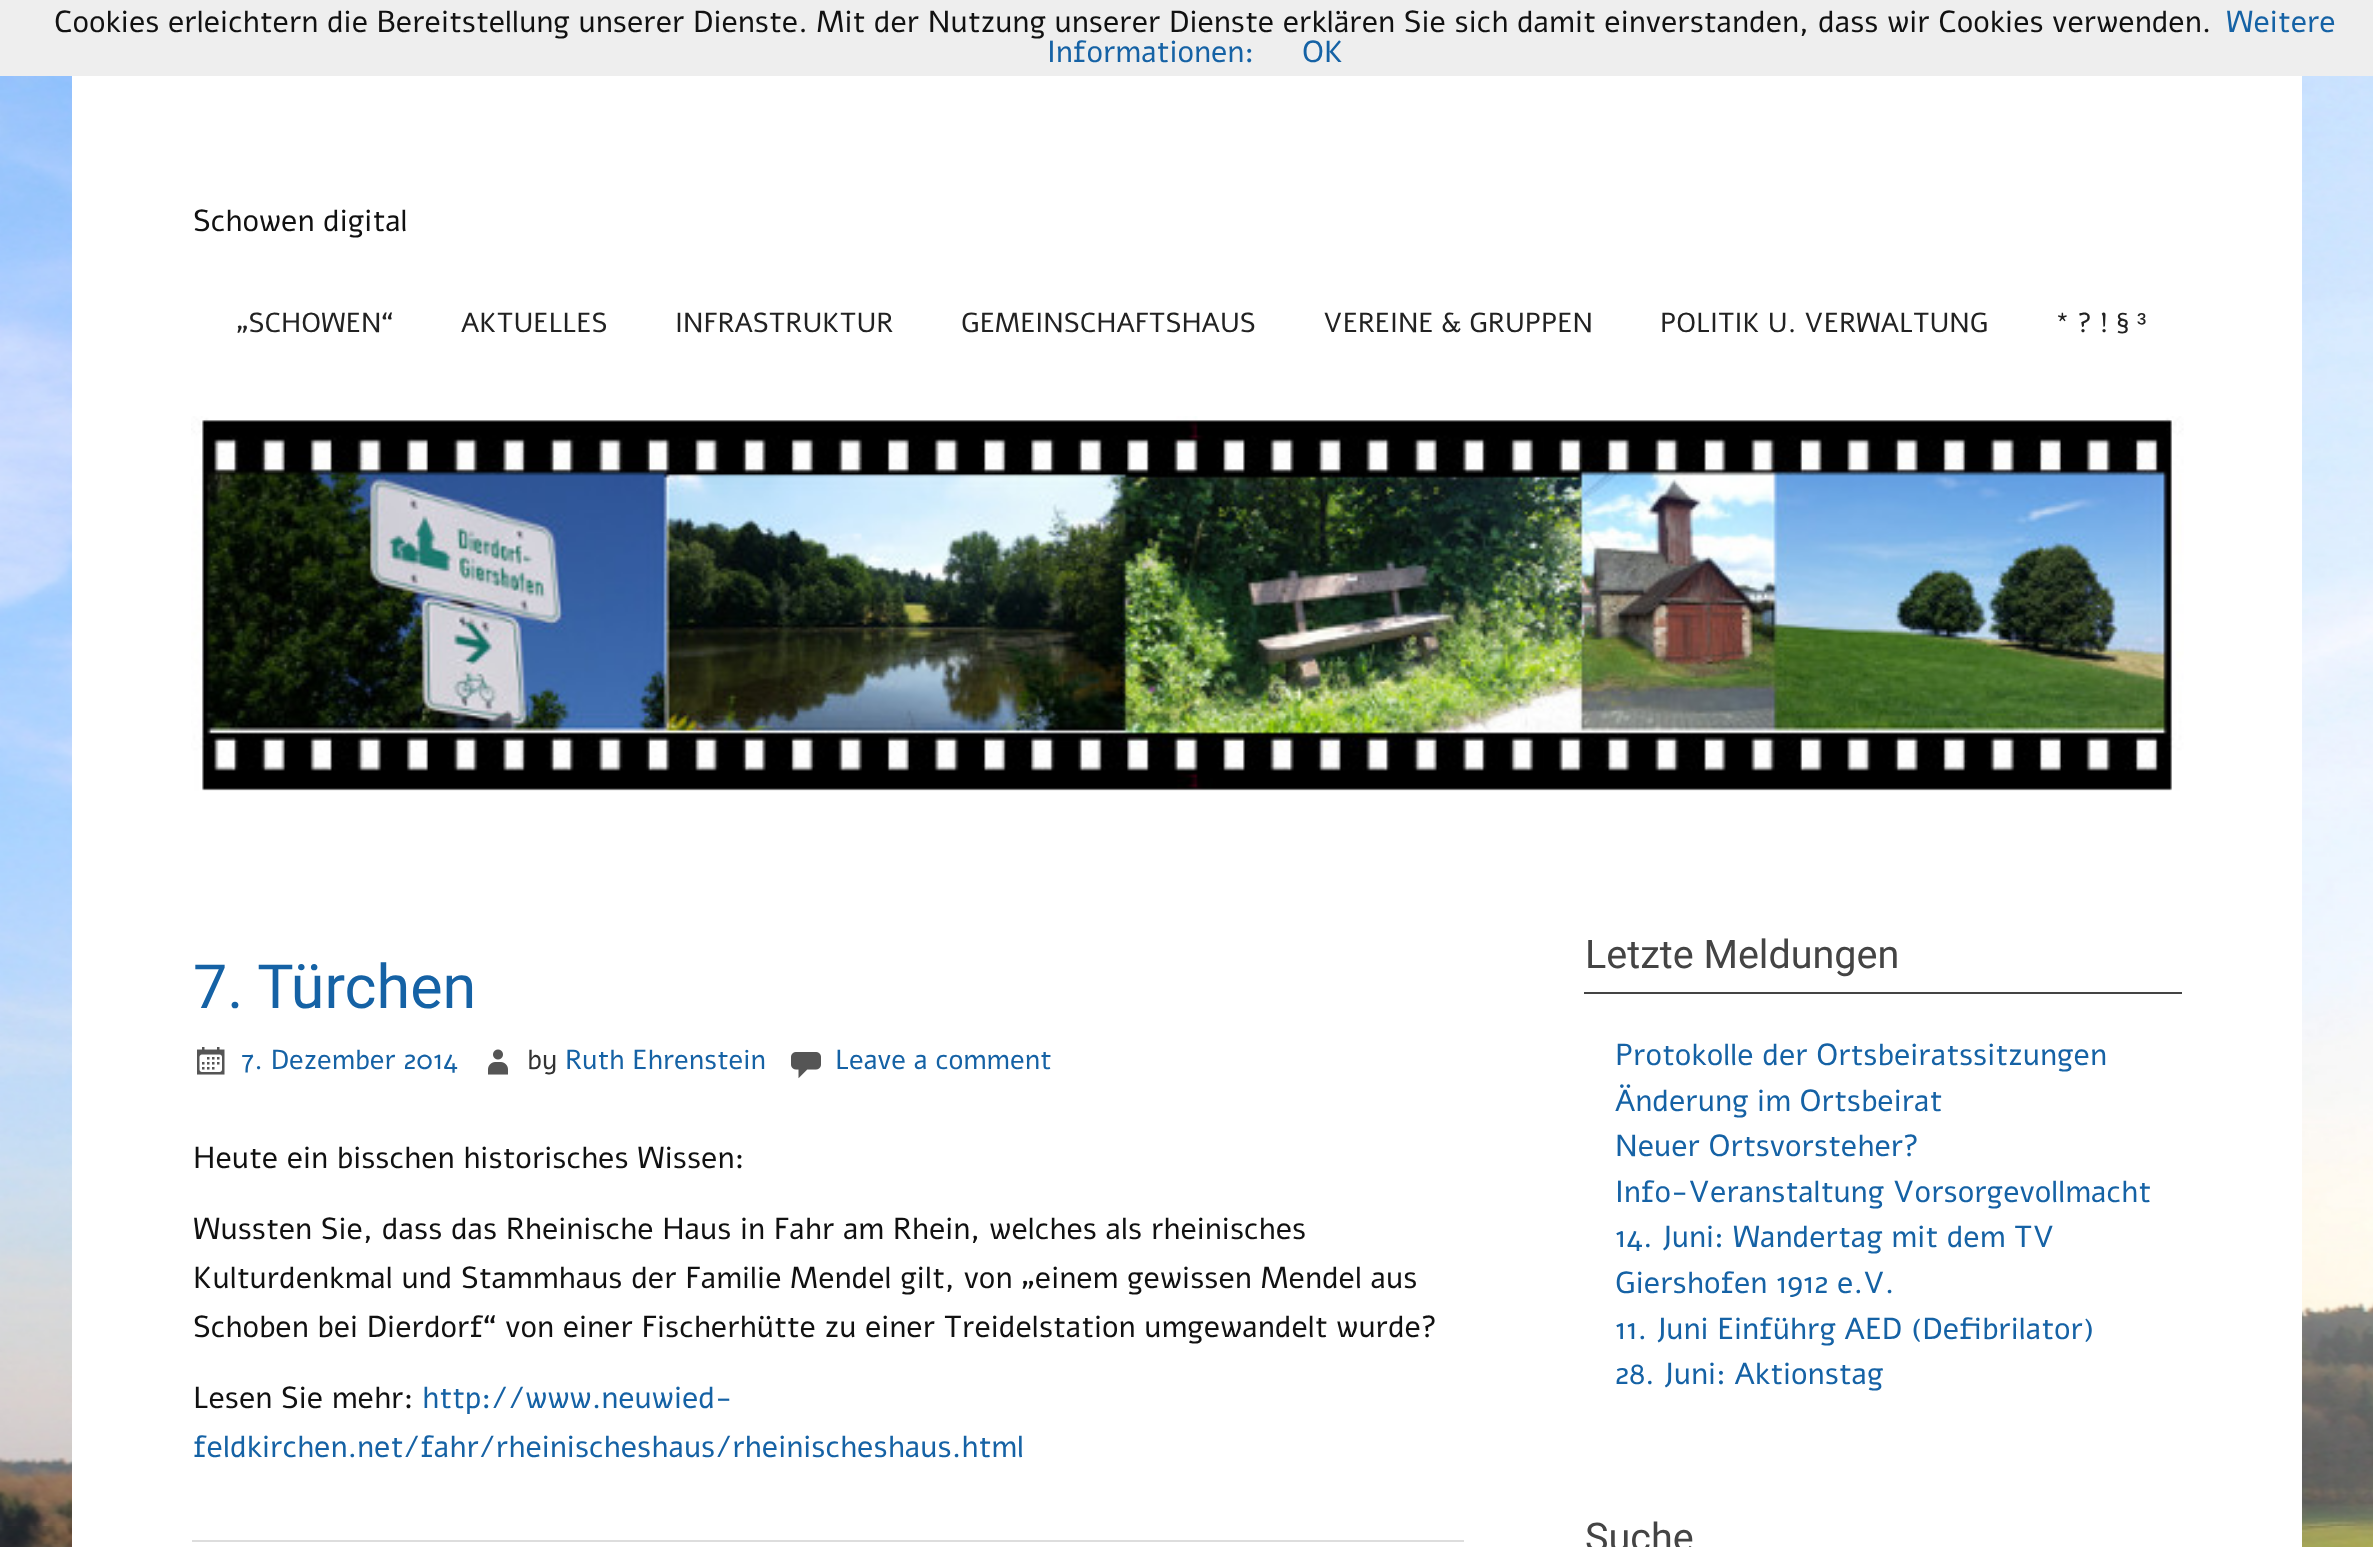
<svg xmlns="http://www.w3.org/2000/svg" width="2373" height="1547" viewBox="0 0 2373 1547">
  <style>
    .t1 { font: 30.4px Alef; fill: #111; }
    .t2 { font: 30.4px Alef; fill: #1562a5; }
    .t3 { font: 27.4px Alef; fill: #222; }
    .t4 { font: 27.4px Liberation Sans; fill: #222; }
    .t5 { font: 61px Roboto; fill: #1562a5; }
    .t6 { font: 27.4px Alef; fill: #1562a5; }
    .t7 { font: 27.4px Alef; fill: #333; }
    .t8 { font: 39.5px Roboto; fill: #444; }
  </style>
  <rect width="100%" height="100%" fill="#fff"/>
  <image x="0" y="76" width="2373" height="1471" href="images/1.png"/>
  <rect x="0" y="0" width="2373" height="76" fill="#eee"/>
  <text x="54" y="32" class="t1">Cookies erleichtern die Bereitstellung unserer Dienste. Mit der Nutzung unserer Dienste erklären Sie sich damit einverstanden, dass wir Cookies verwenden.</text>
  <text x="2226" y="32" class="t2">Weitere</text>
  <text x="1047" y="62" class="t2">Informationen:</text>
  <text x="1302" y="62" class="t2">OK</text>
  <rect x="72" y="76" width="2230" height="1471" fill="#fff"/>
  <text x="193" y="231" class="t1">Schowen digital</text>
  <text x="236" y="332" class="t3">„SCHOWEN“</text>
  <text x="461" y="332" class="t3">AKTUELLES</text>
  <text x="675" y="332" class="t3">INFRASTRUKTUR</text>
  <text x="961" y="332" class="t3">GEMEINSCHAFTSHAUS</text>
  <text x="1323" y="332" class="t3">VEREINE &amp; GRUPPEN</text>
  <text x="1660" y="332" class="t3">POLITIK U. VERWALTUNG</text>
  <text x="2055" y="332" class="t3">* ? ! §</text>
  <text x="2137" y="332" class="t4">³</text>
  <image x="191" y="416" width="1993" height="398" href="images/2.png"/>
  <text x="193" y="1008" class="t5">7. Türchen</text>
  <image x="197" y="1047" width="28" height="28" href="images/3.png"/>
  <text x="241" y="1069" class="t6">7. Dezember 2014</text>
  <image x="488" y="1049" width="20" height="26" href="images/4.png"/>
  <text x="527" y="1069" class="t7">by</text>
  <text x="565" y="1069" class="t6">Ruth Ehrenstein</text>
  <image x="791" y="1052" width="30" height="27" href="images/5.png"/>
  <text x="835" y="1069" class="t6">Leave a comment</text>
  <text x="193" y="1168" class="t1">Heute ein bisschen historisches Wissen:</text>
  <text x="193" y="1239" class="t1">Wussten Sie, dass das Rheinische Haus in Fahr am Rhein, welches als rheinisches</text>
  <text x="193" y="1288" class="t1">Kulturdenkmal und Stammhaus der Familie Mendel gilt, von „einem gewissen Mendel aus</text>
  <text x="193" y="1337" class="t1">Schoben bei Dierdorf“ von einer Fischerhütte zu einer Treidelstation umgewandelt wurde?</text>
  <text x="193" y="1408" class="t1">Lesen Sie mehr:</text>
  <text x="422" y="1408" class="t2">http://www.neuwied-</text>
  <text x="193" y="1457" class="t2">feldkirchen.net/fahr/rheinischeshaus/rheinischeshaus.html</text>
  <rect x="192" y="1540" width="1272" height="2" fill="#ddd"/>
  <rect x="1584" y="992" width="598" height="2" fill="#444"/>
  <text x="1585" y="968" class="t8">Letzte Meldungen</text>
  <text x="1615" y="1065" class="t2">Protokolle der Ortsbeiratssitzungen</text>
  <text x="1615" y="1111" class="t2">Änderung im Ortsbeirat</text>
  <text x="1615" y="1156" class="t2">Neuer Ortsvorsteher?</text>
  <text x="1615" y="1202" class="t2">Info-Veranstaltung Vorsorgevollmacht</text>
  <text x="1615" y="1247" class="t2">14. Juni: Wandertag mit dem TV</text>
  <text x="1615" y="1293" class="t2">Giershofen 1912 e.V.</text>
  <text x="1615" y="1339" class="t2">11. Juni Einführg AED (Defibrilator)</text>
  <text x="1615" y="1384" class="t2">28. Juni: Aktionstag</text>
  <text x="1585" y="1551" class="t8">Suche</text>
</svg>
